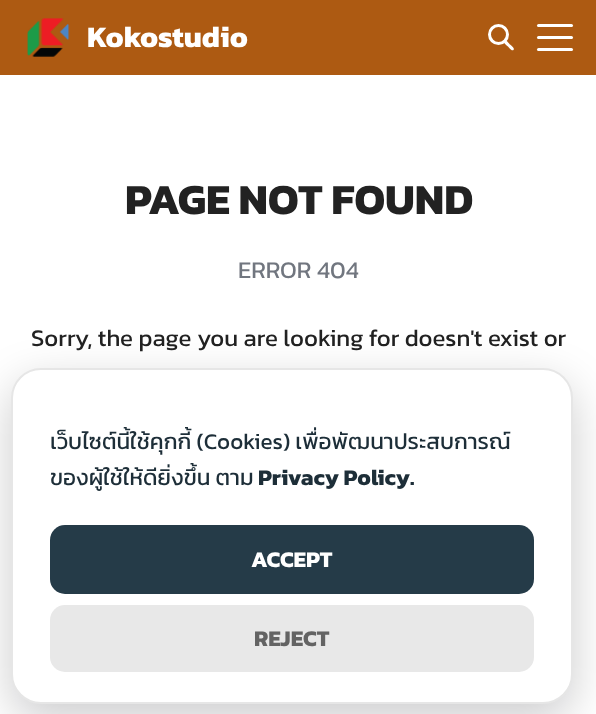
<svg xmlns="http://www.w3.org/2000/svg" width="596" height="714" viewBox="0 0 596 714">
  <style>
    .t1 { font: bold 30px Kanit; fill: #fff; }
    .t2 { font: bold 43.25px Kanit; fill: #222; }
    .t3 { font: 24px Kanit; fill: #71767f; }
    .t4 { font: 24px Kanit; fill: #222; }
    .t5 { font: 22.5px Kanit; fill: #1d2e38; }
    .t6 { font: bold 22.5px Kanit; fill: #1d2e38; }
    .t7 { font: bold 22.5px Kanit; fill: #fff; }
    .t8 { font: bold 22.5px Kanit; fill: #636363; }
  </style>
  <rect width="100%" height="100%" fill="#fff"/>
  <rect x="0" y="0" width="596" height="75" fill="#ad5a12"/>
  <image x="27" y="18" width="43" height="39" href="images/1.png"/>
  <text x="87" y="47" class="t1">Kokostudio</text>
  <path d="M504.5 41C506 39 509 43.5 510 44.5C511 45.5 515 48 513.5 50C511.5 51.5 509 47.5 508 46.5C507 45.5 502.5 42.5 504.5 41Z" fill="#fff"/>
  <circle cx="498.5" cy="34.5" r="9" fill="none" stroke="#fff" stroke-width="3"/>
  <rect x="537" y="36" width="36" height="3" rx="1.5" fill="#fff"/>
  <rect x="537" y="24" width="36" height="3" rx="1.5" fill="#fff"/>
  <rect x="537" y="48" width="36" height="3" rx="1.5" fill="#fff"/>
  <text x="125" y="214" class="t2">PAGE NOT FOUND</text>
  <text x="238" y="278" class="t3">ERROR 404</text>
  <text x="31" y="346" class="t4">Sorry, the page you are looking for doesn't exist or</text>
  <rect x="11" y="383" width="562" height="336" rx="30" fill="#02020333" filter="blur(22.5px)"/>
  <rect x="12" y="369" width="560" height="334" rx="29" fill="#fff" stroke="#e6e6e6" stroke-width="2"/>
  <text x="50" y="449" class="t5">เว็บไซต์นี้ใช้คุกกี้ (Cookies) เพื่อพัฒนาประสบการณ์</text>
  <text x="50" y="485" class="t5">ของผู้ใช้ให้ดียิ่งขึ้น ตาม</text>
  <text x="258" y="485" class="t6">Privacy Policy.</text>
  <rect x="50" y="525" width="484" height="69" rx="15" fill="#253b48"/>
  <text x="251" y="567" class="t7">ACCEPT</text>
  <rect x="50" y="605" width="484" height="67" rx="15" fill="#e8e8e8"/>
  <text x="254" y="646" class="t8">REJECT</text>
</svg>
